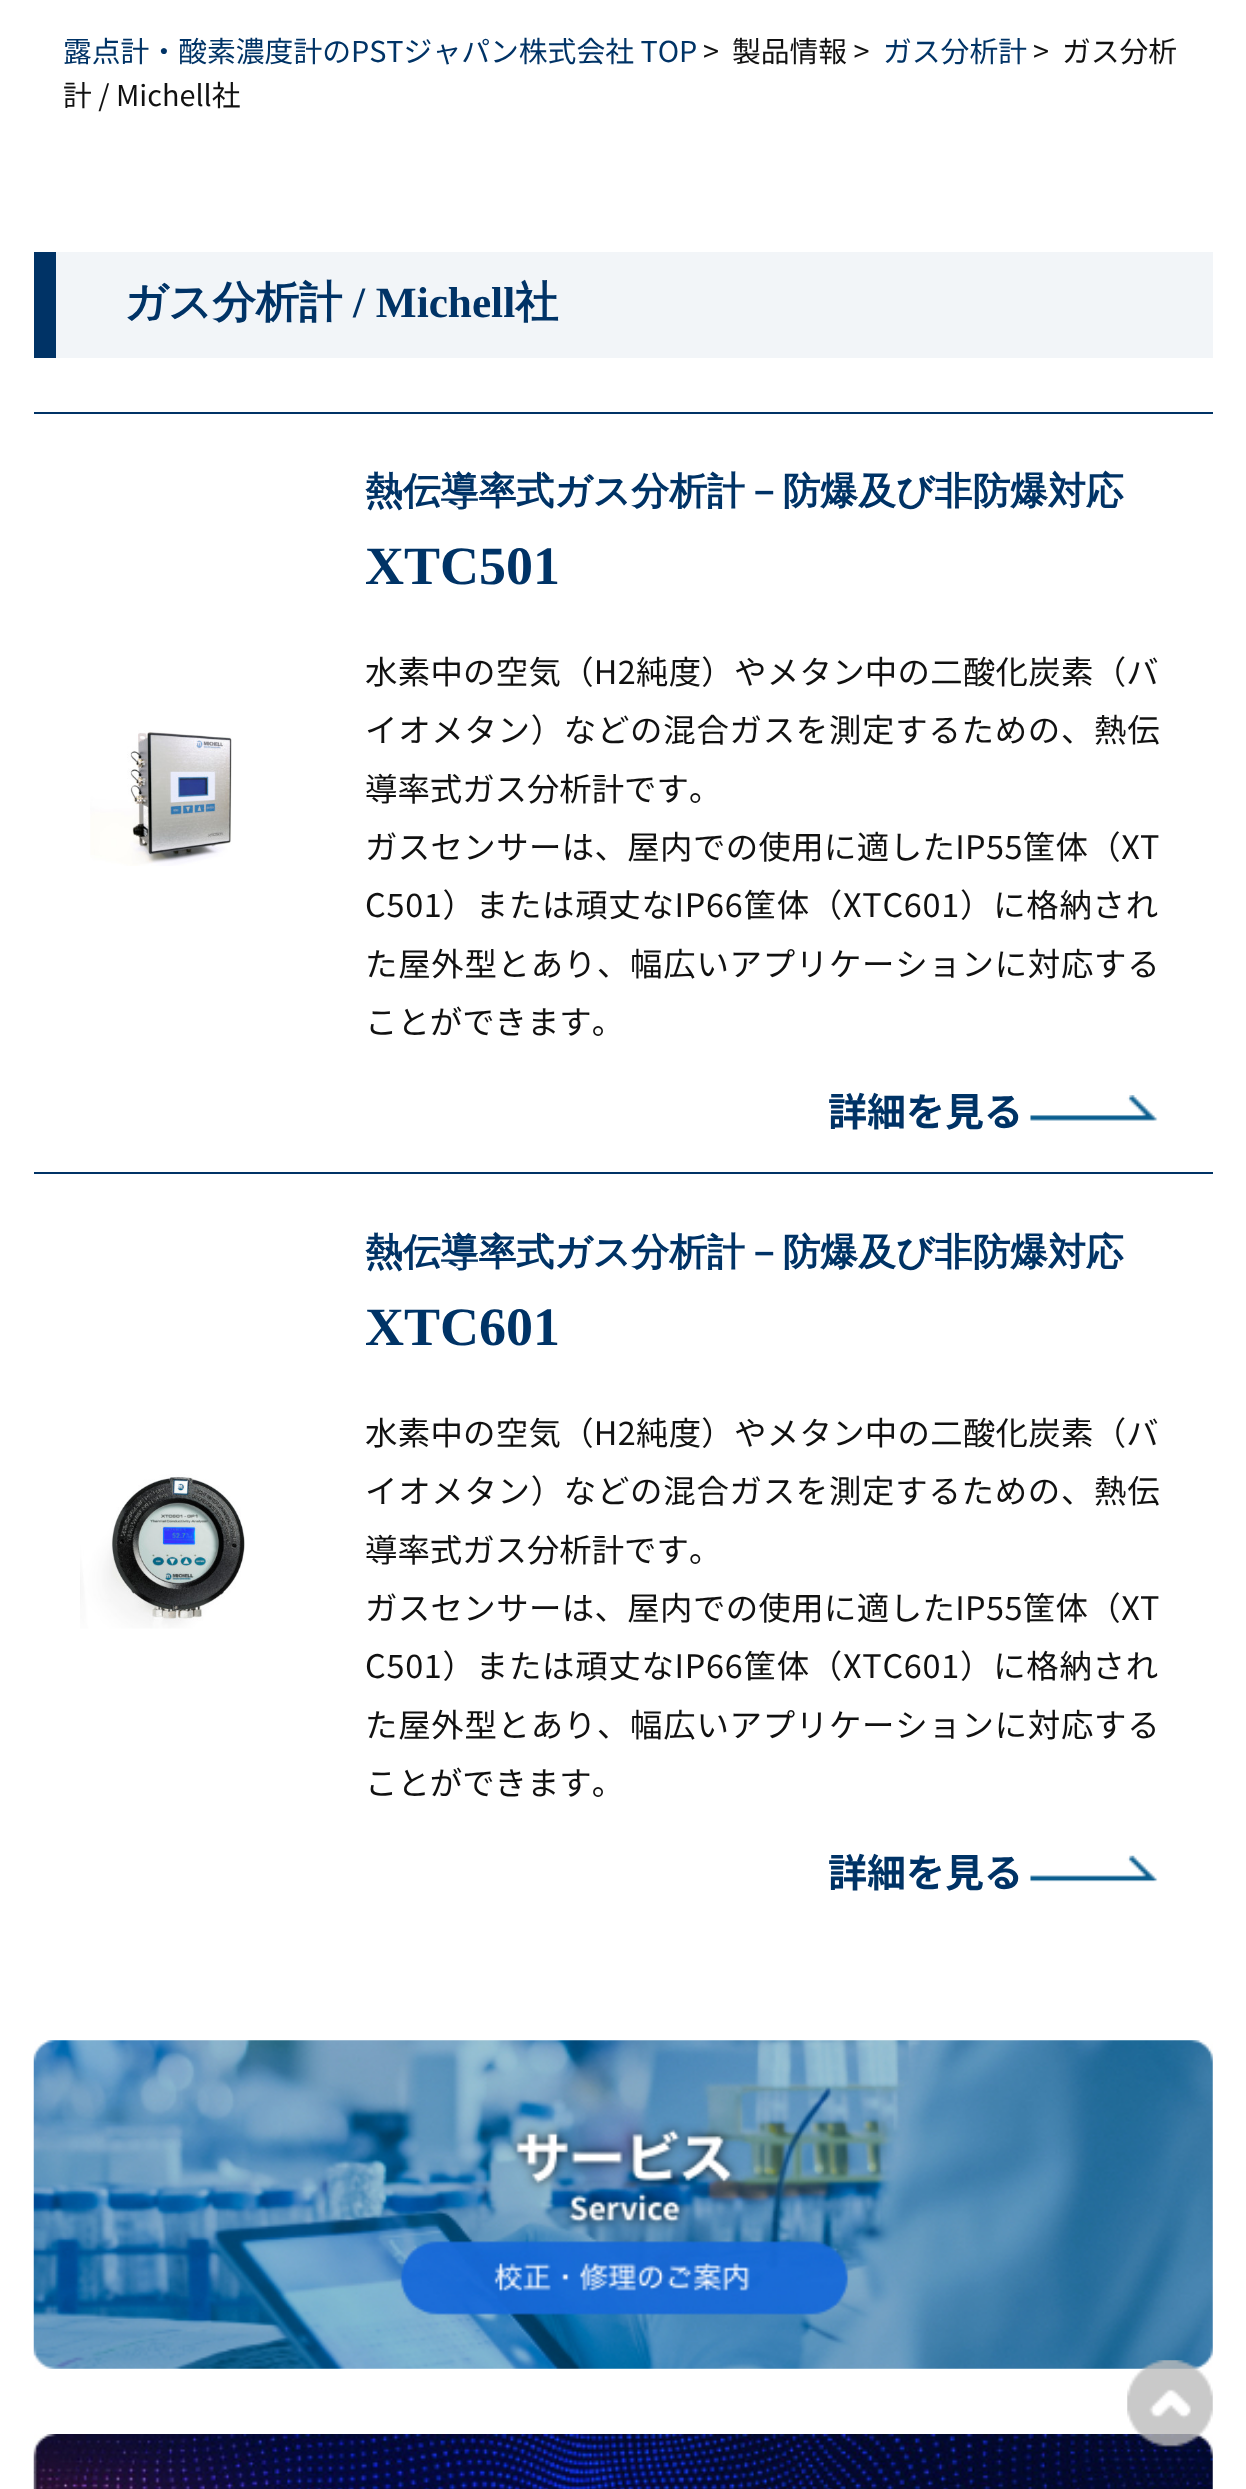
<svg xmlns="http://www.w3.org/2000/svg" width="1246" height="2489" viewBox="0 0 1246 2489">
  <style>*{font-kerning:none!important;font-variant-ligatures:none!important}</style>
  <style>
    .t1 { font: 28.8px Noto Sans JP; fill: #036; }
    .t2 { font: 28.8px Noto Sans JP; fill: #111; }
    .t3 { font: bold 43.25px WenQuanYi Zen Hei; fill: #036; }
    .t4 { font: bold 43.25px Liberation Serif; fill: #036; }
    .t5 { font: bold 37.8px WenQuanYi Zen Hei; fill: #036; }
    .t6 { font: bold 54px Liberation Serif; fill: #036; }
    .t7 { font: 32.4px Noto Sans JP; letter-spacing: 0.3px; fill: #111; }
    .t8 { font: 32.4px Noto Sans JP; letter-spacing: 0.75px; fill: #111; }
    .t9 { font: 32.4px Noto Sans JP; fill: #111; }
    .t10 { font: 32.4px Noto Sans JP; letter-spacing: 0.4px; fill: #111; }
    .t11 { font: bold 39px Noto Sans JP; fill: #036; }
  </style>
  <rect width="100%" height="100%" fill="#fff"/>
  <text x="63" y="62" class="t1">露点計・酸素濃度計のPSTジャパン株式会社 TOP</text>
  <text x="703" y="62" class="t2" xml:space="preserve">&gt;  製品情報 &gt;</text>
  <text x="883" y="62" class="t1">ガス分析計</text>
  <text x="1033" y="62" class="t2" xml:space="preserve">&gt;  ガス分析</text>
  <text x="63" y="106" class="t2">計 / Michell社</text>
  <rect x="56" y="252" width="1157" height="106" fill="#f2f5f8"/>
  <rect x="34" y="252" width="22" height="106" fill="#036"/>
  <text x="124" y="317" class="t3">ガス分析計</text>
  <text x="353" y="317" class="t4">/ Michell</text>
  <text x="515" y="317" class="t3">社</text>
  <rect x="34" y="412" width="1179" height="2" fill="#036"/>
  <image x="90" y="730" width="142" height="136" href="images/1.png"/>
  <text x="365" y="504" class="t5">熱伝導率式ガス分析計－防爆及び非防爆対応</text>
  <text x="365" y="584" class="t6">XTC501</text>
  <text x="365" y="684" class="t7">水素中の空気（H2純度）やメタン中の二酸化炭素（バ</text>
  <text x="365" y="742" class="t8">イオメタン）などの混合ガスを測定するための、熱伝</text>
  <text x="365" y="801" class="t9">導率式ガス分析計です。</text>
  <text x="365" y="859" class="t10">ガスセンサーは、屋内での使用に適したIP55筐体（XT</text>
  <text x="365" y="917" class="t8">C501）または頑丈なIP66筐体（XTC601）に格納され</text>
  <text x="365" y="976" class="t8">た屋外型とあり、幅広いアプリケーションに対応する</text>
  <text x="365" y="1034" class="t9">ことができます。</text>
  <text x="828" y="1126" class="t11">詳細を見る</text>
  <image x="1030" y="1095" width="128" height="26" href="images/2.png"/>
  <rect x="34" y="1172" width="1179" height="2" fill="#036"/>
  <image x="80" y="1474" width="165" height="155" href="images/3.png"/>
  <text x="365" y="1265" class="t5">熱伝導率式ガス分析計－防爆及び非防爆対応</text>
  <text x="365" y="1345" class="t6">XTC601</text>
  <text x="365" y="1445" class="t7">水素中の空気（H2純度）やメタン中の二酸化炭素（バ</text>
  <text x="365" y="1503" class="t8">イオメタン）などの混合ガスを測定するための、熱伝</text>
  <text x="365" y="1562" class="t9">導率式ガス分析計です。</text>
  <text x="365" y="1620" class="t10">ガスセンサーは、屋内での使用に適したIP55筐体（XT</text>
  <text x="365" y="1678" class="t8">C501）または頑丈なIP66筐体（XTC601）に格納され</text>
  <text x="365" y="1737" class="t8">た屋外型とあり、幅広いアプリケーションに対応する</text>
  <text x="365" y="1795" class="t9">ことができます。</text>
  <text x="828" y="1887" class="t11">詳細を見る</text>
  <image x="1030" y="1855" width="128" height="27" href="images/4.png"/>
  <image x="33" y="2040" width="1180" height="329" href="images/5.png"/>
  <image x="33" y="2434" width="1180" height="55" href="images/6.png"/>
  <image x="1127" y="2360" width="86" height="87" href="images/7.png"/>
</svg>
